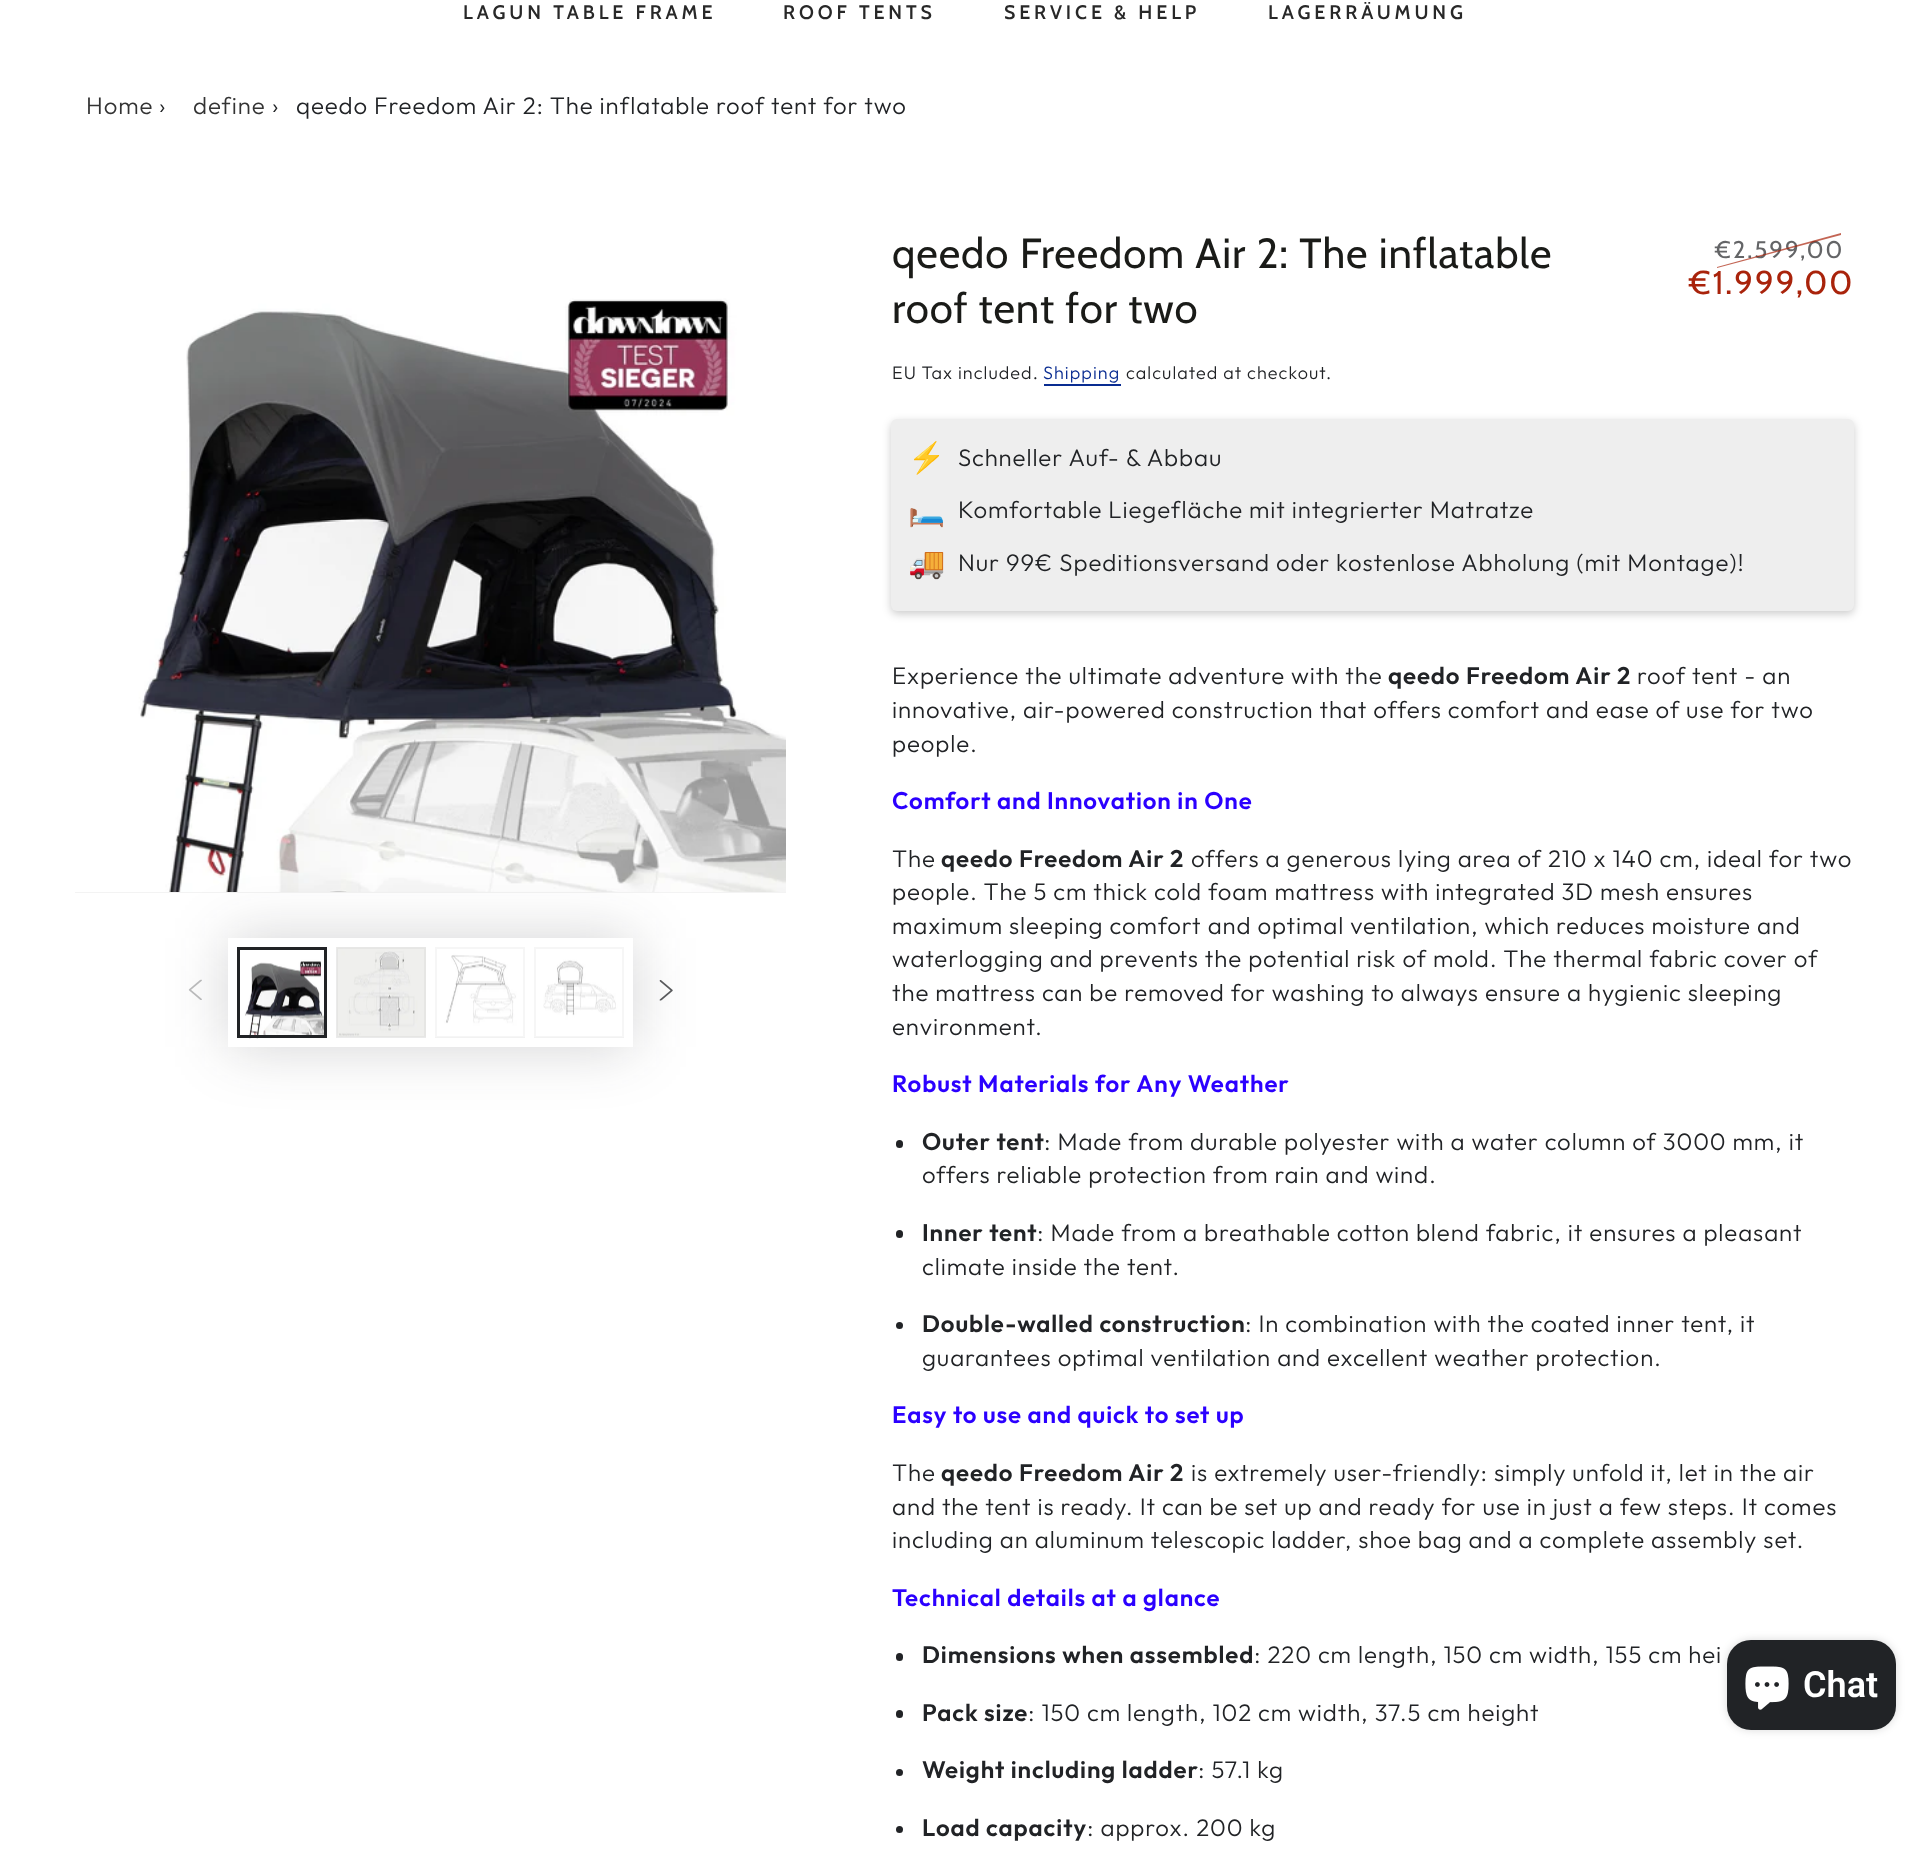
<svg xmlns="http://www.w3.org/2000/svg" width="1929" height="1857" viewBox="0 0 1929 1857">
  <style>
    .t1 { font: 600 19.5px Cabin; letter-spacing: 3.9px; fill: #282828; }
    .t2 { font: 300 24px Outfit; letter-spacing: 0.9px; fill: #333; }
    .t3 { font: 300 24px Outfit; letter-spacing: 0.9px; fill: #212326; }
    .t4 { font: 42px Cabin; letter-spacing: 0.9px; fill: #1a1b18; }
    .t5 { font: 24px Cabin; letter-spacing: 2px; fill: #646567; }
    .t6 { font: 33px Cabin; letter-spacing: 2px; fill: #a9230b; }
    .t7 { font: 300 18px Outfit; letter-spacing: 1.05px; fill: #212326; }
    .t8 { font: 300 18px Outfit; letter-spacing: 1.05px; fill: #092c91; }
    .t9 { font: 30px Noto Color Emoji; letter-spacing: 0.9px; fill: #212326; }
    .t10 { font: 600 24px Outfit; letter-spacing: 0.9px; fill: #212326; }
    .t11 { font: 600 24px Outfit; letter-spacing: 0.9px; fill: #2b00ff; }
    .t12 { font: 600 36px Roboto; fill: #fff; }
  </style>
  <defs>
    <clipPath id="clip1"><path d="M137 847H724V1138H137ZM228 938H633V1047H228Z" clip-rule="evenodd"/></clipPath>
  </defs>
  <rect width="100%" height="100%" fill="#fff"/>
  <text x="463" y="19" class="t1">LAGUN TABLE FRAME</text>
  <text x="783" y="19" class="t1">ROOF TENTS</text>
  <text x="1004" y="19" class="t1">SERVICE &amp; HELP</text>
  <text x="1268" y="19" class="t1">LAGERRÄUMUNG</text>
  <text x="86" y="114" class="t2">Home</text>
  <text x="159" y="114" class="t3">›</text>
  <text x="193" y="114" class="t2">define</text>
  <text x="272" y="114" class="t3">›</text>
  <text x="296" y="114" class="t3">qeedo Freedom Air 2: The inflatable roof tent for two</text>
  <rect x="75" y="892" width="711" height="1" fill="#f3f3f3"/>
  <image x="75" y="182" width="711" height="710" href="images/1.png"/>
  <g clip-path="url(#clip1)">
    <rect x="228" y="938" width="405" height="109" fill="#21232633" filter="blur(30px)"/>
  </g>
  <image x="237" y="950" width="90" height="89" href="images/2.png"/>
  <rect x="238.5" y="948.5" width="87" height="88" fill="none" stroke="#212326" stroke-width="3"/>
  <rect x="336" y="947" width="90" height="91" fill="#f3f3f3"/>
  <image x="337" y="947" width="89" height="90" href="images/3.png"/>
  <rect x="337" y="948" width="88" height="89" fill="none" stroke="#2123260a" stroke-width="2"/>
  <rect x="435" y="1037" width="90" height="1" fill="#f3f3f3"/>
  <image x="435" y="947" width="90" height="91" href="images/4.png"/>
  <rect x="436" y="948" width="88" height="89" fill="none" stroke="#2123260a" stroke-width="2"/>
  <rect x="534" y="1037" width="90" height="1" fill="#f3f3f3"/>
  <image x="534" y="947" width="90" height="91" href="images/5.png"/>
  <rect x="535" y="948" width="88" height="89" fill="none" stroke="#2123260a" stroke-width="2"/>
  <image x="188" y="979" width="14" height="21" href="images/6.png"/>
  <image x="659" y="980" width="14" height="21" href="images/7.png"/>
  <text x="892" y="268" class="t4">qeedo Freedom Air 2: The inflatable</text>
  <text x="892" y="323" class="t4">roof tent for two</text>
  <text x="1715" y="258" class="t5">€2.599,00</text>
  <path d="M1717 267L1841 233V235L1717 268Z" fill="#a9230bb3"/>
  <text x="1689" y="294" class="t6">€1.999,00</text>
  <text x="892" y="379" class="t7">EU Tax included.</text>
  <text x="1043" y="379" class="t8">Shipping</text>
  <rect x="1044" y="384" width="77" height="2" fill="#092c91"/>
  <text x="1126" y="379" class="t7">calculated at checkout.</text>
  <rect x="891" y="422" width="963" height="192" rx="6" fill="#00000033" filter="blur(4px)"/>
  <rect x="891" y="419" width="963" height="192" rx="6" fill="#eee"/>
  <text x="908" y="468" class="t9">⚡</text>
  <text x="958" y="466" class="t3">Schneller Auf- &amp; Abbau</text>
  <text x="908" y="521" class="t9">🛏️</text>
  <text x="958" y="518" class="t3">Komfortable Liegefläche mit integrierter Matratze</text>
  <text x="908" y="573" class="t9">🚚</text>
  <text x="958" y="571" class="t3">Nur 99€ Speditionsversand oder kostenlose Abholung (mit Montage)!</text>
  <text x="892" y="684" class="t3">Experience the ultimate adventure with the</text>
  <text x="1388" y="684" class="t10">qeedo Freedom Air 2</text>
  <text x="1637" y="684" class="t3">roof tent - an</text>
  <text x="892" y="718" class="t3">innovative, air-powered construction that offers comfort and ease of use for two</text>
  <text x="892" y="752" class="t3">people.</text>
  <text x="892" y="809" class="t11">Comfort and Innovation in One</text>
  <text x="892" y="867" class="t3">The</text>
  <text x="941" y="867" class="t10">qeedo Freedom Air 2</text>
  <text x="1191" y="867" class="t3">offers a generous lying area of 210 x 140 cm, ideal for two</text>
  <text x="892" y="900" class="t3">people. The 5 cm thick cold foam mattress with integrated 3D mesh ensures</text>
  <text x="892" y="934" class="t3">maximum sleeping comfort and optimal ventilation, which reduces moisture and</text>
  <text x="892" y="967" class="t3">waterlogging and prevents the potential risk of mold. The thermal fabric cover of</text>
  <text x="892" y="1001" class="t3">the mattress can be removed for washing to always ensure a hygienic sleeping</text>
  <text x="892" y="1035" class="t3">environment.</text>
  <text x="892" y="1092" class="t11">Robust Materials for Any Weather</text>
  <rect x="896" y="1140" width="7" height="8" rx="3.5" fill="#212326"/>
  <text x="922" y="1150" class="t10">Outer tent</text>
  <text x="1044" y="1150" class="t3">: Made from durable polyester with a water column of 3000 mm, it</text>
  <text x="922" y="1183" class="t3">offers reliable protection from rain and wind.</text>
  <rect x="896" y="1230" width="7" height="8" rx="3.5" fill="#212326"/>
  <text x="922" y="1241" class="t10">Inner tent</text>
  <text x="1037" y="1241" class="t3">: Made from a breathable cotton blend fabric, it ensures a pleasant</text>
  <text x="922" y="1275" class="t3">climate inside the tent.</text>
  <circle cx="899.5" cy="1325.5" r="3.5" fill="#212326"/>
  <text x="922" y="1332" class="t10">Double-walled construction</text>
  <text x="1245" y="1332" class="t3">: In combination with the coated inner tent, it</text>
  <text x="922" y="1366" class="t3">guarantees optimal ventilation and excellent weather protection.</text>
  <text x="892" y="1423" class="t11">Easy to use and quick to set up</text>
  <text x="892" y="1481" class="t3">The</text>
  <text x="941" y="1481" class="t10">qeedo Freedom Air 2</text>
  <text x="1191" y="1481" class="t3">is extremely user-friendly: simply unfold it, let in the air</text>
  <text x="892" y="1515" class="t3">and the tent is ready. It can be set up and ready for use in just a few steps. It comes</text>
  <text x="892" y="1548" class="t3">including an aluminum telescopic ladder, shoe bag and a complete assembly set.</text>
  <text x="892" y="1606" class="t11">Technical details at a glance</text>
  <rect x="896" y="1653" width="7" height="8" rx="3.5" fill="#212326"/>
  <text x="922" y="1663" class="t10">Dimensions when assembled</text>
  <text x="1254" y="1663" class="t3">: 220 cm length, 150 cm width, 155 cm hei</text>
  <rect x="896" y="1710" width="7" height="8" rx="3.5" fill="#212326"/>
  <text x="922" y="1721" class="t10">Pack size</text>
  <text x="1028" y="1721" class="t3">: 150 cm length, 102 cm width, 37.5 cm height</text>
  <circle cx="899.5" cy="1772.5" r="3.5" fill="#212326"/>
  <text x="922" y="1778" class="t10">Weight including ladder</text>
  <text x="1198" y="1778" class="t3">: 57.1 kg</text>
  <circle cx="899.5" cy="1829.5" r="3.5" fill="#212326"/>
  <text x="922" y="1836" class="t10">Load capacity</text>
  <text x="1087" y="1836" class="t3">: approx. 200 kg</text>
  <rect x="1727" y="1640" width="169" height="90" rx="24" fill="#00000026" filter="blur(4px)"/>
  <rect x="1727" y="1640" width="169" height="90" rx="24" fill="#212326"/>
  <image x="1745" y="1666" width="44" height="44" href="images/8.png"/>
  <text x="1803" y="1697" class="t12">Chat</text>
</svg>
